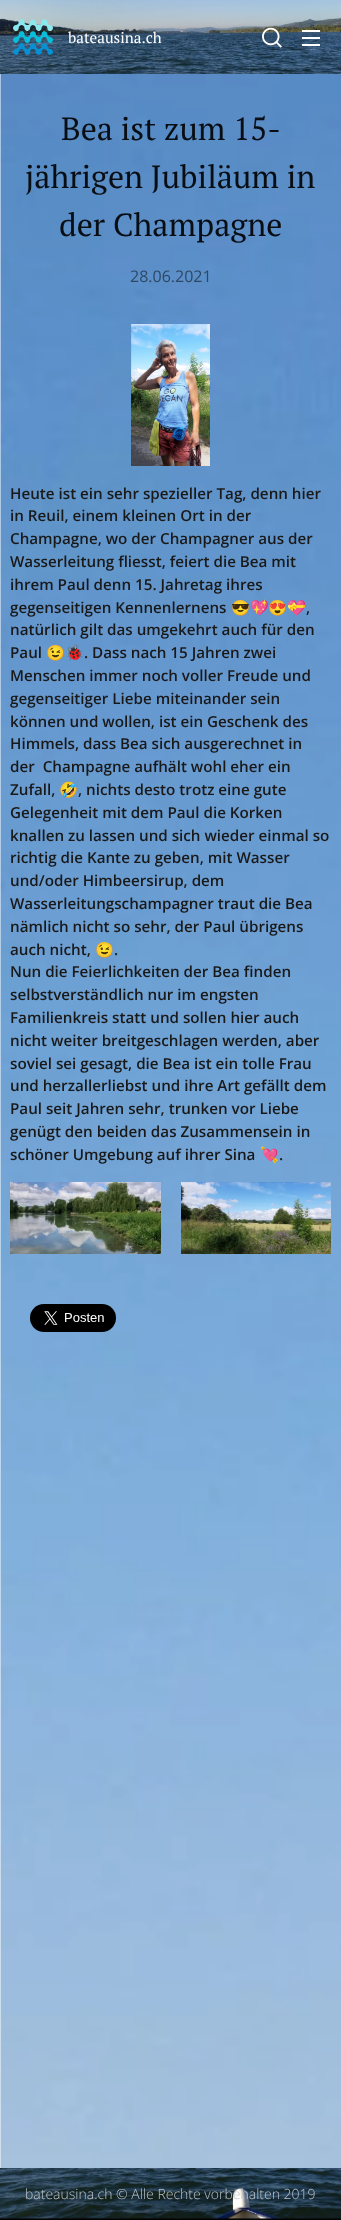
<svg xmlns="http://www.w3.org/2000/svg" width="341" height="2220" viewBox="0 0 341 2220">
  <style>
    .t1 { font: 15.2px PT Serif; fill: #fff; }
    .t2 { font: 32px PT Serif; fill: #090e14; }
    .t3 { font: 16px Open Sans; fill: #2e4864; }
    .t4 { font: 600 15.2px Open Sans; fill: #191919; }
    .t5 { font: bold 15.2px Noto Color Emoji; fill: #191919; }
    .t6 { font: 300 14px Open Sans; fill: #bec4c7; }
  </style>
  <rect width="100%" height="100%" fill="#fff"/>
  <image x="0" y="0" width="341" height="74" href="images/1.png"/>
  <image x="13" y="19" width="40" height="36" href="images/2.png"/>
  <text x="68" y="43" class="t1">bateausina.ch</text>
  <image x="262" y="27" width="20" height="21" href="images/3.png"/>
  <rect x="302" y="37" width="18" height="2" fill="#fff"/>
  <rect x="302" y="30" width="18" height="2" fill="#fff"/>
  <rect x="302" y="44" width="18" height="2" fill="#fff"/>
  <image x="0" y="74" width="341" height="228" href="images/4.png"/>
  <text x="61" y="140" class="t2">Bea ist zum 15-</text>
  <text x="25" y="188" class="t2">jährigen Jubiläum in</text>
  <text x="59" y="236" class="t2">der Champagne</text>
  <text x="130" y="282" class="t3">28.06.2021</text>
  <image x="0" y="302" width="341" height="1866" href="images/5.png"/>
  <image x="131" y="324" width="79" height="142" href="images/6.png"/>
  <text x="10" y="499" class="t4">Heute ist ein sehr spezieller Tag, denn hier</text>
  <text x="10" y="521" class="t4">in Reuil, einem kleinen Ort in der</text>
  <text x="10" y="544" class="t4">Champagne, wo der Champagner aus der</text>
  <text x="10" y="567" class="t4">Wasserleitung fliesst, feiert die Bea mit</text>
  <text x="10" y="590" class="t4">ihrem Paul denn 15. Jahretag ihres</text>
  <text x="10" y="613" class="t4">gegenseitigen Kennenlernens</text>
  <text x="231" y="613" class="t5">😎💖😍💝</text>
  <text x="306" y="613" class="t4">,</text>
  <text x="10" y="635" class="t4">natürlich gilt das umgekehrt auch für den</text>
  <text x="10" y="658" class="t4">Paul</text>
  <text x="46" y="658" class="t5">😉🐞</text>
  <text x="84" y="658" class="t4">. Dass nach 15 Jahren zwei</text>
  <text x="10" y="681" class="t4">Menschen immer noch voller Freude und</text>
  <text x="10" y="704" class="t4">gegenseitiger Liebe miteinander sein</text>
  <text x="10" y="727" class="t4">können und wollen, ist ein Geschenk des</text>
  <text x="10" y="749" class="t4">Himmels, dass Bea sich ausgerechnet in</text>
  <text x="10" y="772" class="t4" xml:space="preserve">der  Champagne aufhält wohl eher ein</text>
  <text x="10" y="795" class="t4">Zufall,</text>
  <text x="59" y="795" class="t5">🤣</text>
  <text x="78" y="795" class="t4">, nichts desto trotz eine gute</text>
  <text x="10" y="818" class="t4">Gelegenheit mit dem Paul die Korken</text>
  <text x="10" y="841" class="t4">knallen zu lassen und sich wieder einmal so</text>
  <text x="10" y="863" class="t4">richtig die Kante zu geben, mit Wasser</text>
  <text x="10" y="886" class="t4">und/oder Himbeersirup, dem</text>
  <text x="10" y="909" class="t4">Wasserleitungschampagner traut die Bea</text>
  <text x="10" y="932" class="t4">nämlich nicht so sehr, der Paul übrigens</text>
  <text x="10" y="955" class="t4">auch nicht,</text>
  <text x="95" y="955" class="t5">😉</text>
  <text x="114" y="955" class="t4">.</text>
  <text x="10" y="977" class="t4">Nun die Feierlichkeiten der Bea finden</text>
  <text x="10" y="1000" class="t4">selbstverständlich nur im engsten</text>
  <text x="10" y="1023" class="t4">Familienkreis statt und sollen hier auch</text>
  <text x="10" y="1046" class="t4">nicht weiter breitgeschlagen werden, aber</text>
  <text x="10" y="1069" class="t4">soviel sei gesagt, die Bea ist ein tolle Frau</text>
  <text x="10" y="1091" class="t4">und herzallerliebst und ihre Art gefällt dem</text>
  <text x="10" y="1114" class="t4">Paul seit Jahren sehr, trunken vor Liebe</text>
  <text x="10" y="1137" class="t4">genügt den beiden das Zusammensein in</text>
  <text x="10" y="1160" class="t4">schöner Umgebung auf ihrer Sina</text>
  <text x="260" y="1160" class="t5">💘</text>
  <text x="279" y="1160" class="t4">.</text>
  <image x="10" y="1182" width="151" height="72" href="images/7.png"/>
  <image x="181" y="1182" width="150" height="72" href="images/8.png"/>
  <image x="30" y="1304" width="86" height="28" href="images/9.png"/>
  <image x="0" y="2168" width="341" height="52" href="images/10.png"/>
  <text x="25" y="2199" class="t6">bateausina.ch © Alle Rechte vorbehalten 2019</text>
</svg>
